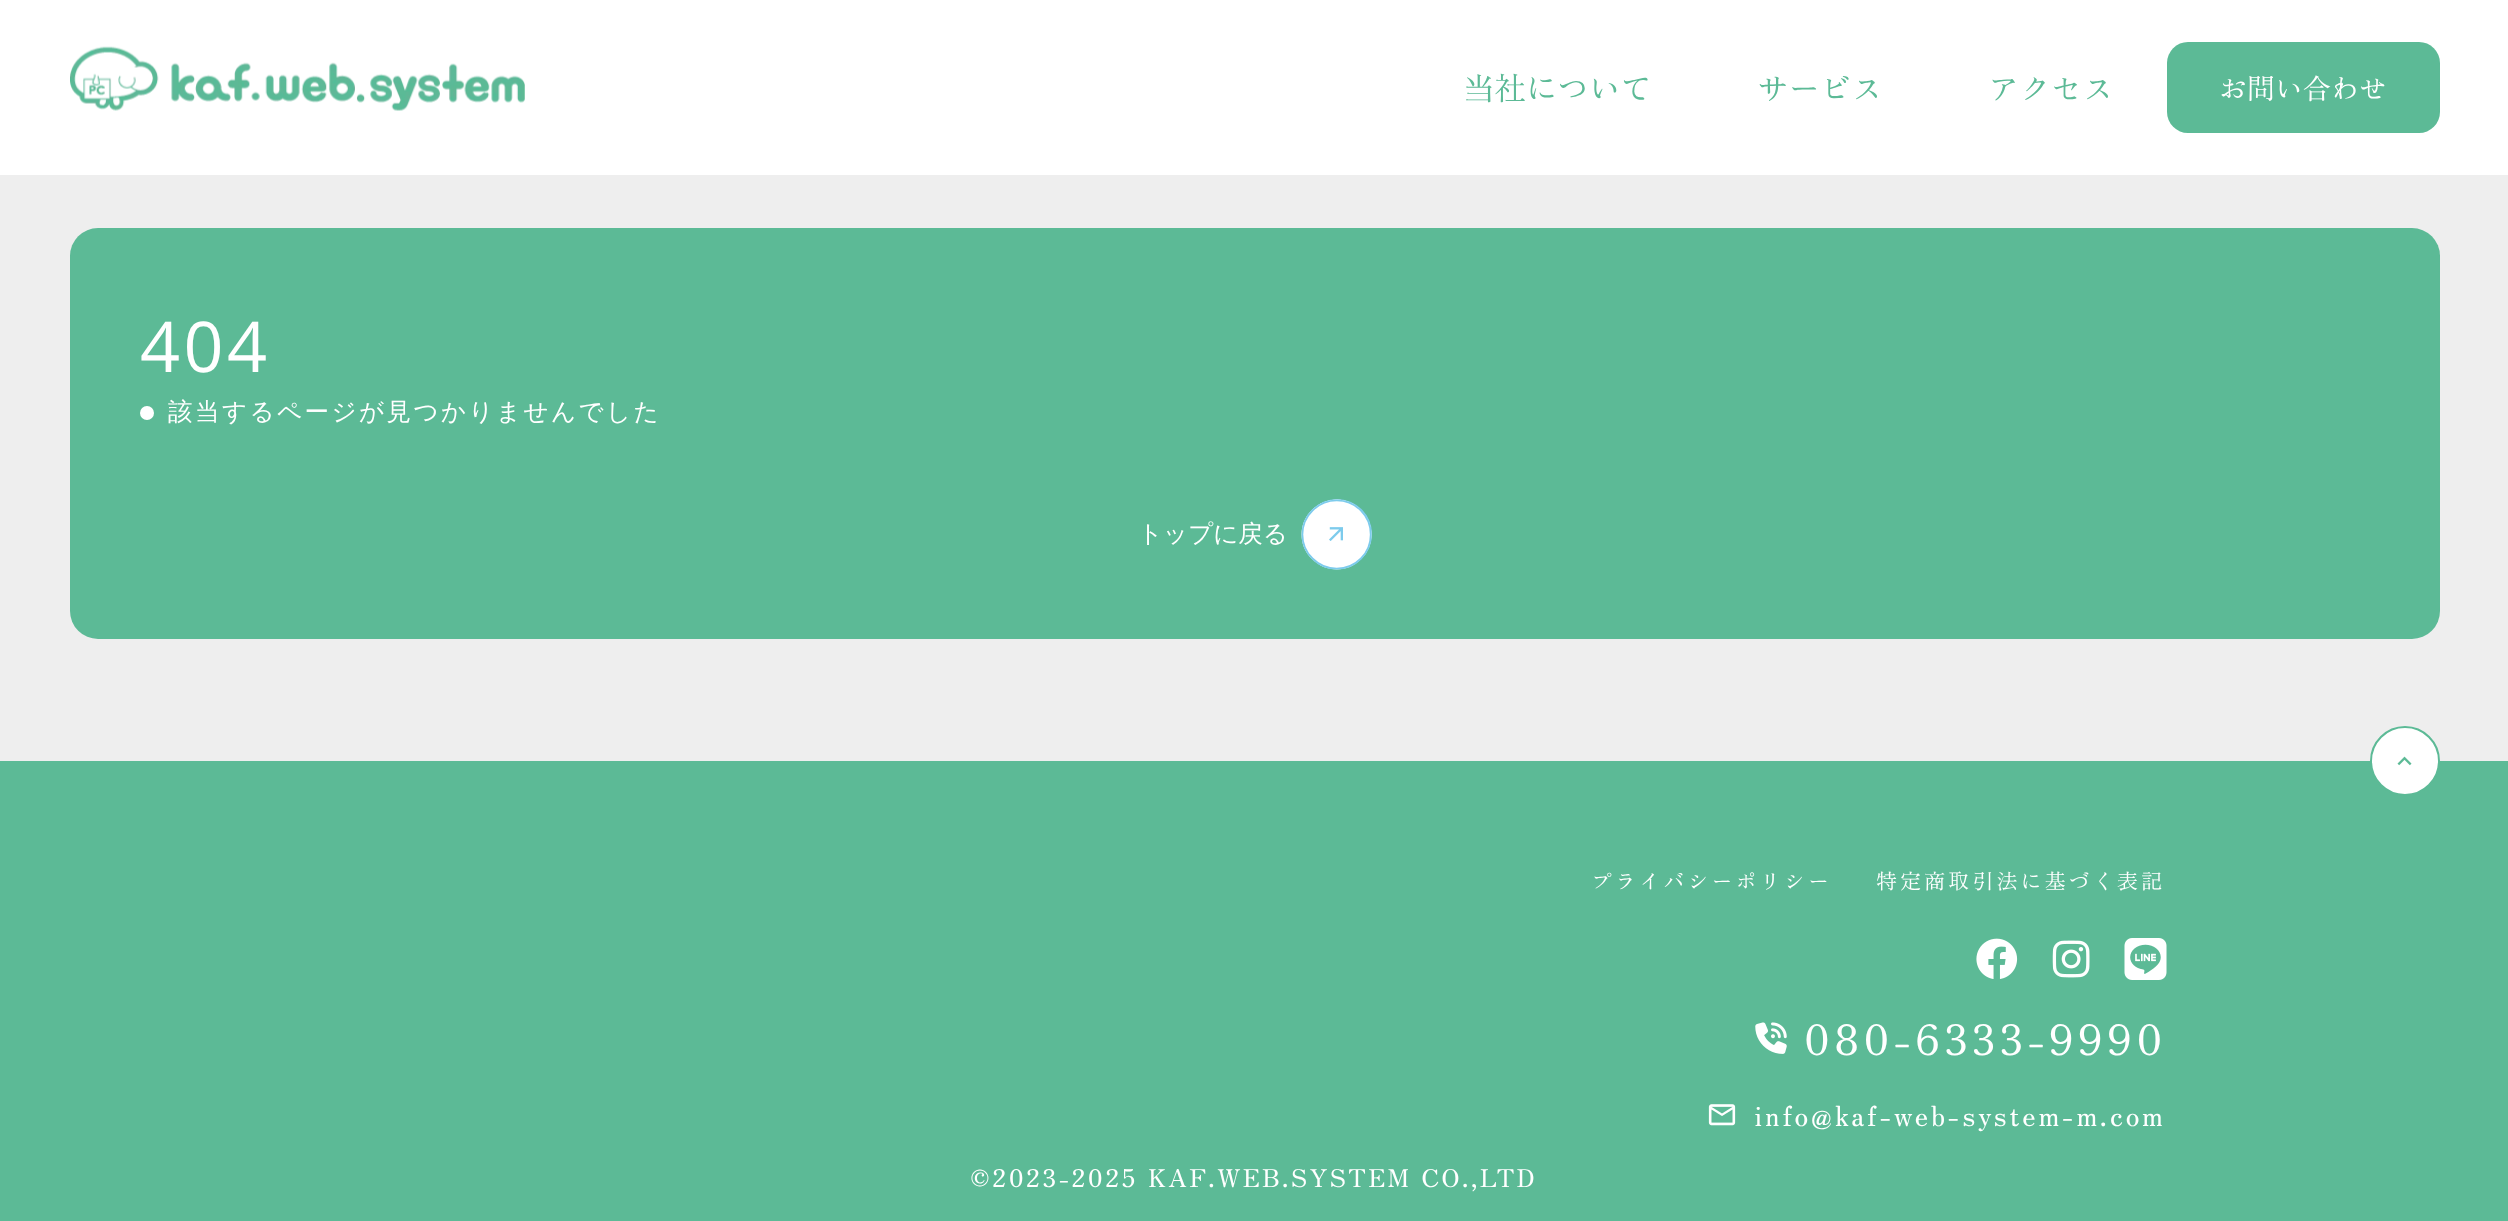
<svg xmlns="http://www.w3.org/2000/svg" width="2508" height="1221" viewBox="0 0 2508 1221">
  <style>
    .t1 { font: 31.5px Zen Old Mincho; fill: #5cba96; }
    .t2 { font: 28px Zen Old Mincho; fill: #fff; }
    .t3 { font: 70px Open Sans; letter-spacing: 3.5px; fill: #fff; }
    .t4 { font: 500 24.5px WenQuanYi Zen Hei; letter-spacing: 2.45px; fill: #fff; }
    .t5 { font: 500 24.5px WenQuanYi Zen Hei; fill: #fff; }
    .t6 { font: 21px Zen Old Mincho; letter-spacing: 3.1px; fill: #fff; }
    .t7 { font: 42px Zen Old Mincho; letter-spacing: 4.25px; fill: #fff; }
    .t8 { font: 28px Zen Old Mincho; letter-spacing: 2.8px; fill: #fff; }
    .t9 { font: 500 24.5px Zen Old Mincho; letter-spacing: 2.45px; fill: #fff; }
  </style>
  <rect width="100%" height="100%" fill="#eee"/>
  <rect x="0" y="0" width="2508" height="175" fill="#fff"/>
  <image x="70" y="46" width="455" height="65" href="images/1.png"/>
  <text x="1463" y="100" class="t1">当社について</text>
  <text x="1757" y="100" class="t1">サービス</text>
  <text x="1988" y="100" class="t1">アクセス</text>
  <rect x="2167" y="42" width="273" height="91" rx="21" fill="#5cba96"/>
  <text x="2219" y="99" class="t2">お問い合わせ</text>
  <rect x="70" y="228" width="2370" height="411" rx="28" fill="#5cba96"/>
  <text x="140" y="372" class="t3">404</text>
  <circle cx="147" cy="413" r="7" fill="#fff"/>
  <text x="168" y="420" class="t4">該当するページが見つかりませんでした</text>
  <text x="1138" y="542" class="t5">トップに戻る</text>
  <circle cx="1337" cy="534" r="35" fill="#7dcbec"/>
  <path d="M1312 510C1326 496 1348 496 1361 510C1375 523 1375 546 1361 559C1348 573 1326 573 1312 559C1298 546 1298 523 1312 510Z" fill="#fff"/>
  <path d="M1312.5 510.5C1326 497 1347.5 497 1361 510.5C1374 523.5 1374 545.5 1361 558.5C1347.5 572 1326 572 1312.5 558.5C1299 545.5 1299 523.5 1312.5 510.5Z" fill="none" stroke="#7dcbec" stroke-width="1.8"/>
  <image x="1329" y="527" width="14" height="14" href="images/2.png"/>
  <rect x="0" y="761" width="2508" height="460" fill="#5cba96"/>
  <circle cx="2405" cy="761" r="34" fill="#fff" stroke="#5cba96" stroke-width="2"/>
  <image x="2397" y="756" width="15" height="10" href="images/3.png"/>
  <text x="1591" y="889" class="t6">プライバシーポリシー</text>
  <text x="1876" y="889" class="t6">特定商取引法に基づく表記</text>
  <image x="1976" y="938" width="42" height="41" href="images/4.png"/>
  <image x="2052" y="940" width="38" height="38" href="images/5.png"/>
  <image x="2124" y="938" width="43" height="42" href="images/6.png"/>
  <image x="1755" y="1022" width="32" height="32" href="images/7.png"/>
  <text x="1804" y="1055" class="t7">080-6333-9990</text>
  <image x="1708" y="1104" width="28" height="22" href="images/8.png"/>
  <text x="1754" y="1126" class="t8">info@kaf-web-system-m.com</text>
  <text x="970" y="1187" word-spacing="1" class="t9">©︎2023-2025 KAF.WEB.SYSTEM CO.,LTD</text>
</svg>
